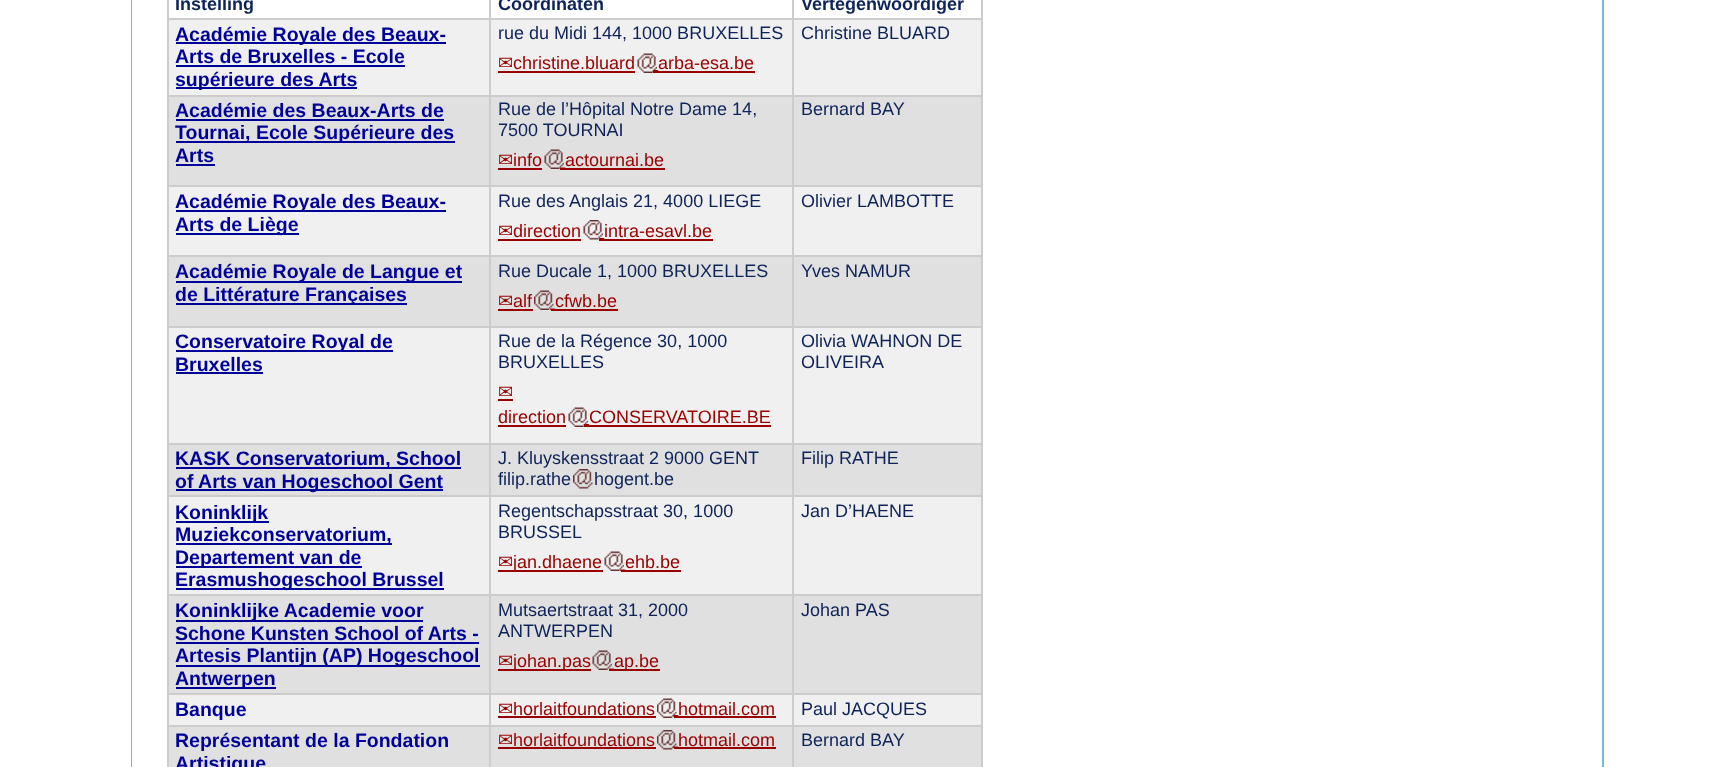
<svg xmlns="http://www.w3.org/2000/svg" width="1733" height="767" viewBox="0 0 1733 767">
  <style>
    .t1 { font: bold 18px Liberation Sans; fill: #0e2358; }
    .t2 { font: bold 19.5px Liberation Sans; fill: #009; }
    .t3 { font: 18px Liberation Sans; fill: #0e2358; }
    .t4 { font: 18px DejaVu Sans; fill: #900; }
    .t5 { font: 18px Liberation Sans; fill: #900; }
  </style>
  <rect width="100%" height="100%" fill="#fff"/>
  <rect x="131" y="0" width="1473" height="767" fill="#72bae0"/>
  <rect x="132" y="0" width="1470" height="767" fill="#fff"/>
  <text x="175" y="10" class="t1">Instelling</text>
  <rect x="792" y="18" width="191" height="2" fill="#ccc"/>
  <rect x="169" y="20" width="812" height="75" fill="#f0f0f0"/>
  <rect x="792" y="95" width="191" height="2" fill="#ccc"/>
  <rect x="169" y="97" width="812" height="88" fill="#e0e0e0"/>
  <rect x="792" y="185" width="191" height="2" fill="#ccc"/>
  <rect x="169" y="187" width="812" height="68" fill="#f0f0f0"/>
  <rect x="792" y="255" width="191" height="2" fill="#ccc"/>
  <rect x="169" y="257" width="812" height="69" fill="#e0e0e0"/>
  <rect x="792" y="326" width="191" height="2" fill="#ccc"/>
  <rect x="169" y="328" width="812" height="115" fill="#f0f0f0"/>
  <rect x="792" y="443" width="191" height="2" fill="#ccc"/>
  <rect x="169" y="445" width="812" height="50" fill="#e0e0e0"/>
  <rect x="792" y="495" width="191" height="2" fill="#ccc"/>
  <rect x="169" y="497" width="812" height="97" fill="#f0f0f0"/>
  <rect x="792" y="594" width="191" height="2" fill="#ccc"/>
  <rect x="169" y="596" width="812" height="97" fill="#e0e0e0"/>
  <rect x="792" y="693" width="191" height="2" fill="#ccc"/>
  <rect x="169" y="695" width="812" height="30" fill="#f0f0f0"/>
  <rect x="792" y="725" width="191" height="2" fill="#ccc"/>
  <rect x="169" y="727" width="812" height="40" fill="#e0e0e0"/>
  <rect x="792" y="725" width="2" height="42" fill="#ccc"/>
  <rect x="489" y="725" width="305" height="2" fill="#ccc"/>
  <rect x="792" y="693" width="2" height="33" fill="#ccc"/>
  <rect x="489" y="693" width="305" height="2" fill="#ccc"/>
  <rect x="792" y="594" width="2" height="101" fill="#ccc"/>
  <rect x="489" y="594" width="305" height="2" fill="#ccc"/>
  <rect x="792" y="495" width="2" height="101" fill="#ccc"/>
  <rect x="489" y="495" width="305" height="2" fill="#ccc"/>
  <rect x="792" y="443" width="2" height="54" fill="#ccc"/>
  <rect x="489" y="443" width="305" height="2" fill="#ccc"/>
  <rect x="792" y="326" width="2" height="118" fill="#ccc"/>
  <rect x="489" y="326" width="305" height="2" fill="#ccc"/>
  <rect x="792" y="255" width="2" height="72" fill="#ccc"/>
  <rect x="489" y="255" width="305" height="2" fill="#ccc"/>
  <rect x="792" y="185" width="2" height="72" fill="#ccc"/>
  <rect x="489" y="185" width="305" height="2" fill="#ccc"/>
  <rect x="792" y="95" width="2" height="91" fill="#ccc"/>
  <rect x="489" y="95" width="305" height="2" fill="#ccc"/>
  <rect x="792" y="18" width="2" height="78" fill="#ccc"/>
  <rect x="489" y="18" width="305" height="2" fill="#ccc"/>
  <rect x="489" y="725" width="2" height="42" fill="#ccc"/>
  <rect x="167" y="725" width="324" height="2" fill="#ccc"/>
  <rect x="489" y="693" width="2" height="33" fill="#ccc"/>
  <rect x="167" y="693" width="324" height="2" fill="#ccc"/>
  <rect x="489" y="594" width="2" height="101" fill="#ccc"/>
  <rect x="167" y="594" width="324" height="2" fill="#ccc"/>
  <rect x="489" y="495" width="2" height="101" fill="#ccc"/>
  <rect x="167" y="495" width="324" height="2" fill="#ccc"/>
  <rect x="489" y="443" width="2" height="54" fill="#ccc"/>
  <rect x="167" y="443" width="324" height="2" fill="#ccc"/>
  <rect x="489" y="326" width="2" height="118" fill="#ccc"/>
  <rect x="167" y="326" width="324" height="2" fill="#ccc"/>
  <rect x="489" y="255" width="2" height="72" fill="#ccc"/>
  <rect x="167" y="255" width="324" height="2" fill="#ccc"/>
  <rect x="489" y="185" width="2" height="72" fill="#ccc"/>
  <rect x="167" y="185" width="324" height="2" fill="#ccc"/>
  <rect x="489" y="95" width="2" height="91" fill="#ccc"/>
  <rect x="167" y="95" width="324" height="2" fill="#ccc"/>
  <rect x="489" y="18" width="2" height="78" fill="#ccc"/>
  <rect x="167" y="18" width="324" height="2" fill="#ccc"/>
  <rect x="489" y="0" width="2" height="20" fill="#ccc"/>
  <text x="498" y="10" class="t1">Coördinaten</text>
  <rect x="792" y="0" width="2" height="20" fill="#ccc"/>
  <text x="801" y="10" class="t1">Vertegenwoordiger</text>
  <rect x="167" y="725" width="2" height="42" fill="#ccc"/>
  <rect x="167" y="693" width="2" height="33" fill="#ccc"/>
  <rect x="167" y="594" width="2" height="101" fill="#ccc"/>
  <rect x="167" y="495" width="2" height="101" fill="#ccc"/>
  <rect x="167" y="443" width="2" height="54" fill="#ccc"/>
  <rect x="167" y="326" width="2" height="118" fill="#ccc"/>
  <rect x="167" y="255" width="2" height="72" fill="#ccc"/>
  <rect x="167" y="185" width="2" height="72" fill="#ccc"/>
  <rect x="167" y="95" width="2" height="91" fill="#ccc"/>
  <rect x="167" y="0" width="2" height="96" fill="#ccc"/>
  <rect x="176" y="42" width="270" height="2" fill="#009"/>
  <text x="175" y="41" class="t2">Académie Royale des Beaux-</text>
  <text x="175" y="63" class="t2">Arts de Bruxelles - Ecole</text>
  <rect x="176" y="65" width="229" height="2" fill="#009"/>
  <rect x="176" y="87" width="181" height="2" fill="#009"/>
  <text x="175" y="86" class="t2">supérieure des Arts</text>
  <text x="498" y="39" class="t3">rue du Midi 144, 1000 BRUXELLES</text>
  <text x="498" y="69" class="t4">✉</text>
  <rect x="498" y="71" width="137" height="2" fill="#900"/>
  <text x="513" y="69" class="t5">christine.bluard</text>
  <image x="637" y="53" width="22" height="20" href="images/1.png"/>
  <text x="658" y="69" class="t5">arba-esa.be</text>
  <rect x="653" y="71" width="102" height="2" fill="#900"/>
  <rect x="981" y="725" width="2" height="42" fill="#ccc"/>
  <rect x="981" y="693" width="2" height="33" fill="#ccc"/>
  <rect x="981" y="594" width="2" height="101" fill="#ccc"/>
  <rect x="981" y="495" width="2" height="101" fill="#ccc"/>
  <rect x="981" y="443" width="2" height="54" fill="#ccc"/>
  <rect x="981" y="326" width="2" height="118" fill="#ccc"/>
  <rect x="981" y="255" width="2" height="72" fill="#ccc"/>
  <rect x="981" y="185" width="2" height="72" fill="#ccc"/>
  <rect x="981" y="95" width="2" height="91" fill="#ccc"/>
  <rect x="981" y="0" width="2" height="96" fill="#ccc"/>
  <text x="801" y="39" class="t3">Christine BLUARD</text>
  <text x="175" y="117" class="t2">Académie des Beaux-Arts de</text>
  <rect x="176" y="119" width="268" height="2" fill="#009"/>
  <rect x="176" y="141" width="279" height="2" fill="#009"/>
  <text x="175" y="139" class="t2">Tournai, Ecole Supérieure des</text>
  <text x="175" y="162" class="t2">Arts</text>
  <rect x="176" y="164" width="39" height="2" fill="#009"/>
  <text x="498" y="115" class="t3">Rue de l’Hôpital Notre Dame 14,</text>
  <text x="498" y="136" class="t3">7500 TOURNAI</text>
  <text x="498" y="166" class="t4">✉</text>
  <rect x="498" y="168" width="44" height="2" fill="#900"/>
  <text x="513" y="166" class="t5">info</text>
  <image x="544" y="149" width="22" height="20" href="images/2.png"/>
  <text x="565" y="166" class="t5">actournai.be</text>
  <rect x="560" y="168" width="105" height="2" fill="#900"/>
  <text x="801" y="115" class="t3">Bernard BAY</text>
  <rect x="176" y="210" width="270" height="2" fill="#009"/>
  <text x="175" y="208" class="t2">Académie Royale des Beaux-</text>
  <rect x="176" y="233" width="123" height="2" fill="#009"/>
  <text x="175" y="231" class="t2">Arts de Liège</text>
  <text x="498" y="207" class="t3">Rue des Anglais 21, 4000 LIEGE</text>
  <text x="498" y="237" class="t4">✉</text>
  <rect x="498" y="239" width="83" height="2" fill="#900"/>
  <text x="513" y="237" class="t5">direction</text>
  <image x="583" y="220" width="22" height="20" href="images/3.png"/>
  <text x="604" y="237" class="t5">intra-esavl.be</text>
  <rect x="599" y="239" width="114" height="2" fill="#900"/>
  <text x="801" y="207" class="t3">Olivier LAMBOTTE</text>
  <rect x="176" y="281" width="286" height="2" fill="#009"/>
  <text x="175" y="278" class="t2">Académie Royale de Langue et</text>
  <rect x="176" y="303" width="231" height="2" fill="#009"/>
  <text x="175" y="301" class="t2">de Littérature Françaises</text>
  <text x="498" y="277" class="t3">Rue Ducale 1, 1000 BRUXELLES</text>
  <text x="498" y="307" class="t4">✉</text>
  <rect x="498" y="309" width="35" height="2" fill="#900"/>
  <text x="513" y="307" class="t5">alf</text>
  <image x="534" y="290" width="22" height="20" href="images/4.png"/>
  <text x="555" y="307" class="t5">cfwb.be</text>
  <rect x="551" y="309" width="67" height="2" fill="#900"/>
  <text x="801" y="277" class="t3">Yves NAMUR</text>
  <rect x="176" y="350" width="217" height="2" fill="#009"/>
  <text x="175" y="348" class="t2">Conservatoire Royal de</text>
  <text x="175" y="371" class="t2">Bruxelles</text>
  <rect x="176" y="372" width="87" height="2" fill="#009"/>
  <text x="498" y="347" class="t3">Rue de la Régence 30, 1000</text>
  <text x="498" y="368" class="t3">BRUXELLES</text>
  <text x="498" y="398" class="t4">✉</text>
  <rect x="498" y="399" width="15" height="2" fill="#900"/>
  <text x="498" y="423" class="t5">direction</text>
  <rect x="498" y="425" width="68" height="2" fill="#900"/>
  <image x="568" y="407" width="22" height="20" href="images/5.png"/>
  <text x="589" y="423" class="t5">CONSERVATOIRE.BE</text>
  <rect x="584" y="425" width="187" height="2" fill="#900"/>
  <text x="801" y="347" class="t3">Olivia WAHNON DE</text>
  <text x="801" y="368" class="t3">OLIVEIRA</text>
  <rect x="176" y="467" width="285" height="2" fill="#009"/>
  <text x="175" y="465" class="t2">KASK Conservatorium, School</text>
  <rect x="176" y="489" width="267" height="2" fill="#009"/>
  <text x="175" y="488" class="t2">of Arts van Hogeschool Gent</text>
  <text x="498" y="464" class="t3">J. Kluyskensstraat 2 9000 GENT</text>
  <text x="498" y="485" class="t3">filip.rathe</text>
  <image x="573" y="469" width="20" height="20" href="images/6.png"/>
  <text x="594" y="485" class="t3">hogent.be</text>
  <text x="801" y="464" class="t3">Filip RATHE</text>
  <rect x="176" y="521" width="93" height="2" fill="#009"/>
  <text x="175" y="519" class="t2">Koninklijk</text>
  <rect x="176" y="543" width="216" height="2" fill="#009"/>
  <text x="175" y="541" class="t2">Muziekconservatorium,</text>
  <rect x="176" y="566" width="186" height="2" fill="#009"/>
  <text x="175" y="564" class="t2">Departement van de</text>
  <rect x="176" y="588" width="268" height="2" fill="#009"/>
  <text x="175" y="586" class="t2">Erasmushogeschool Brussel</text>
  <text x="498" y="517" class="t3">Regentschapsstraat 30, 1000</text>
  <text x="498" y="538" class="t3">BRUSSEL</text>
  <text x="498" y="568" class="t4">✉</text>
  <rect x="498" y="570" width="105" height="2" fill="#900"/>
  <text x="513" y="568" class="t5">jan.dhaene</text>
  <image x="604" y="551" width="22" height="20" href="images/7.png"/>
  <text x="625" y="568" class="t5">ehb.be</text>
  <rect x="621" y="570" width="60" height="2" fill="#900"/>
  <text x="801" y="517" class="t3">Jan D’HAENE</text>
  <rect x="176" y="620" width="247" height="2" fill="#009"/>
  <text x="175" y="617" class="t2">Koninklijke Academie voor</text>
  <text x="175" y="640" class="t2">Schone Kunsten School of Arts -</text>
  <rect x="176" y="642" width="303" height="2" fill="#009"/>
  <rect x="176" y="665" width="304" height="2" fill="#009"/>
  <text x="175" y="662" class="t2">Artesis Plantijn (AP) Hogeschool</text>
  <rect x="176" y="687" width="100" height="2" fill="#009"/>
  <text x="175" y="685" class="t2">Antwerpen</text>
  <text x="498" y="616" class="t3">Mutsaertstraat 31, 2000</text>
  <text x="498" y="637" class="t3">ANTWERPEN</text>
  <text x="498" y="667" class="t4">✉</text>
  <rect x="498" y="669" width="93" height="2" fill="#900"/>
  <text x="513" y="667" class="t5">johan.pas</text>
  <image x="592" y="650" width="23" height="20" href="images/8.png"/>
  <rect x="609" y="669" width="51" height="2" fill="#900"/>
  <text x="614" y="667" class="t5">ap.be</text>
  <text x="801" y="616" class="t3">Johan PAS</text>
  <text x="175" y="716" class="t2">Banque</text>
  <text x="498" y="715" class="t4">✉</text>
  <rect x="498" y="716" width="158" height="2" fill="#900"/>
  <text x="513" y="715" class="t5">horlaitfoundations</text>
  <image x="657" y="698" width="22" height="20" href="images/9.png"/>
  <text x="678" y="715" class="t5">hotmail.com</text>
  <rect x="674" y="716" width="102" height="2" fill="#900"/>
  <text x="801" y="715" class="t3">Paul JACQUES</text>
  <text x="175" y="747" class="t2">Représentant de la Fondation</text>
  <text x="175" y="770" class="t2">Artistique</text>
  <text x="498" y="746" class="t4">✉</text>
  <rect x="498" y="747" width="158" height="2" fill="#900"/>
  <text x="513" y="746" class="t5">horlaitfoundations</text>
  <image x="657" y="730" width="22" height="20" href="images/10.png"/>
  <text x="678" y="746" class="t5">hotmail.com</text>
  <rect x="674" y="747" width="102" height="2" fill="#900"/>
  <text x="801" y="746" class="t3">Bernard BAY</text>
</svg>
